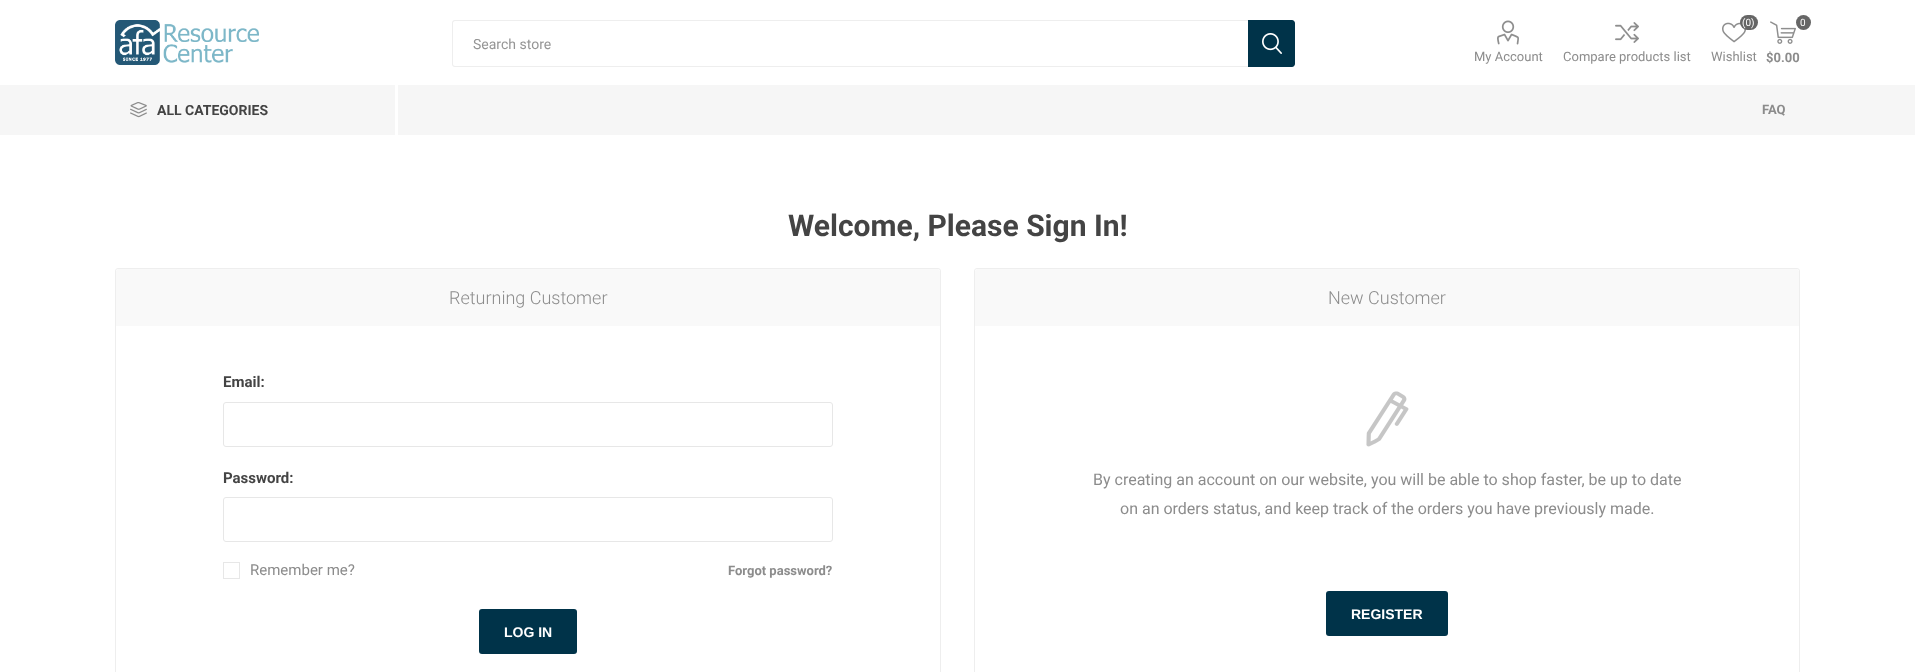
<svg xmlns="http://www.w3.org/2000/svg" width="1915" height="672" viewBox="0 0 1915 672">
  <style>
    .t1 { font: 14px Roboto; fill: #959595; }
    .t2 { font: 13px Roboto; fill: #8c8c8c; }
    .t3 { font: 10px Roboto; fill: #fff; }
    .t4 { font: bold 13px Roboto; fill: #8c8c8c; }
    .t5 { font: bold 14px Roboto; fill: #444; }
    .t6 { font: bold 30px Roboto; fill: #444; }
    .t7 { font: 300 18px Roboto; fill: #8c8c8c; }
    .t8 { font: bold 15px Roboto; fill: #444; }
    .t9 { font: 15px Roboto; fill: #8c8c8c; }
    .t10 { font: bold 14px Liberation Sans; fill: #fff; }
    .t11 { font: 16px Roboto; fill: #8c8c8c; }
  </style>
  <rect width="100%" height="100%" fill="#fff"/>
  <image x="115" y="20" width="144" height="45" href="images/1.png"/>
  <path d="M455 20H1248V67H455C453 67 452 66 452 64V23C452 21 453 20 455 20ZM455 21H1248V66H455C454 66 453 65 453 64V23C453 22 454 21 455 21Z" fill="#eee" fill-rule="evenodd"/>
  <text x="473" y="49" class="t1">Search store</text>
  <path d="M1248 20H1292C1293.5 20 1295 21.5 1295 23V64C1295 65.5 1293.5 67 1292 67H1248Z" fill="#003349"/>
  <image x="1262" y="33" width="20" height="21" href="images/2.png"/>
  <image x="1497" y="20" width="22" height="25" href="images/3.png"/>
  <text x="1474" y="61" class="t2">My Account</text>
  <image x="1615" y="22" width="24" height="21" href="images/4.png"/>
  <text x="1563" y="61" class="t2">Compare products list</text>
  <image x="1722" y="22" width="24" height="21" href="images/5.png"/>
  <rect x="1740" y="15" width="18" height="15" rx="7.5" fill="#666"/>
  <text x="1742" y="26" class="t3">(0)</text>
  <text x="1711" y="61" class="t2">Wishlist</text>
  <image x="1770" y="21" width="26" height="23" href="images/6.png"/>
  <circle cx="1803.5" cy="22.5" r="7.5" fill="#666"/>
  <text x="1800" y="26" class="t3">0</text>
  <text x="1766" y="62" class="t4">$0.00</text>
  <rect x="0" y="85" width="1915" height="50" fill="#f6f6f6"/>
  <rect x="395" y="85" width="3" height="50" fill="#fff"/>
  <image x="130" y="102" width="17" height="16" href="images/7.png"/>
  <text x="157" y="115" class="t5">ALL CATEGORIES</text>
  <text x="1762" y="114" class="t4">FAQ</text>
  <text x="788" y="236" class="t6">Welcome, Please Sign In!</text>
  <rect x="115.5" y="268.5" width="825" height="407" rx="2.5" fill="none" stroke="#eee"/>
  <path d="M119 269H937C938.5 269 940 270.5 940 272V326H116V272C116 270.5 117.5 269 119 269Z" fill="#f9f9f9"/>
  <text x="449" y="304" class="t7">Returning Customer</text>
  <text x="223" y="387" class="t8">Email:</text>
  <rect x="223.5" y="402.5" width="609" height="44" rx="2.5" fill="none" stroke="#e7e7e7"/>
  <text x="223" y="483" class="t8">Password:</text>
  <rect x="223.5" y="497.5" width="609" height="44" rx="2.5" fill="none" stroke="#e7e7e7"/>
  <rect x="223.5" y="562.5" width="16" height="16" fill="none" stroke="#e7e7e7"/>
  <text x="250" y="575" class="t9">Remember me?</text>
  <text x="728" y="575" class="t4">Forgot password?</text>
  <rect x="479" y="609" width="98" height="45" rx="3" fill="#003349"/>
  <text x="504" y="637" class="t10">LOG IN</text>
  <rect x="974.5" y="268.5" width="825" height="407" rx="2.5" fill="none" stroke="#eee"/>
  <path d="M978 269H1796C1797.5 269 1799 270.5 1799 272V326H975V272C975 270.5 976.5 269 978 269Z" fill="#f9f9f9"/>
  <text x="1328" y="304" class="t7">New Customer</text>
  <image x="1366" y="391" width="43" height="56" href="images/8.png"/>
  <text x="1093" y="485" class="t11">By creating an account on our website, you will be able to shop faster, be up to date</text>
  <text x="1120" y="514" class="t11">on an orders status, and keep track of the orders you have previously made.</text>
  <rect x="1326" y="591" width="122" height="45" rx="3" fill="#003349"/>
  <text x="1351" y="619" class="t10">REGISTER</text>
</svg>
